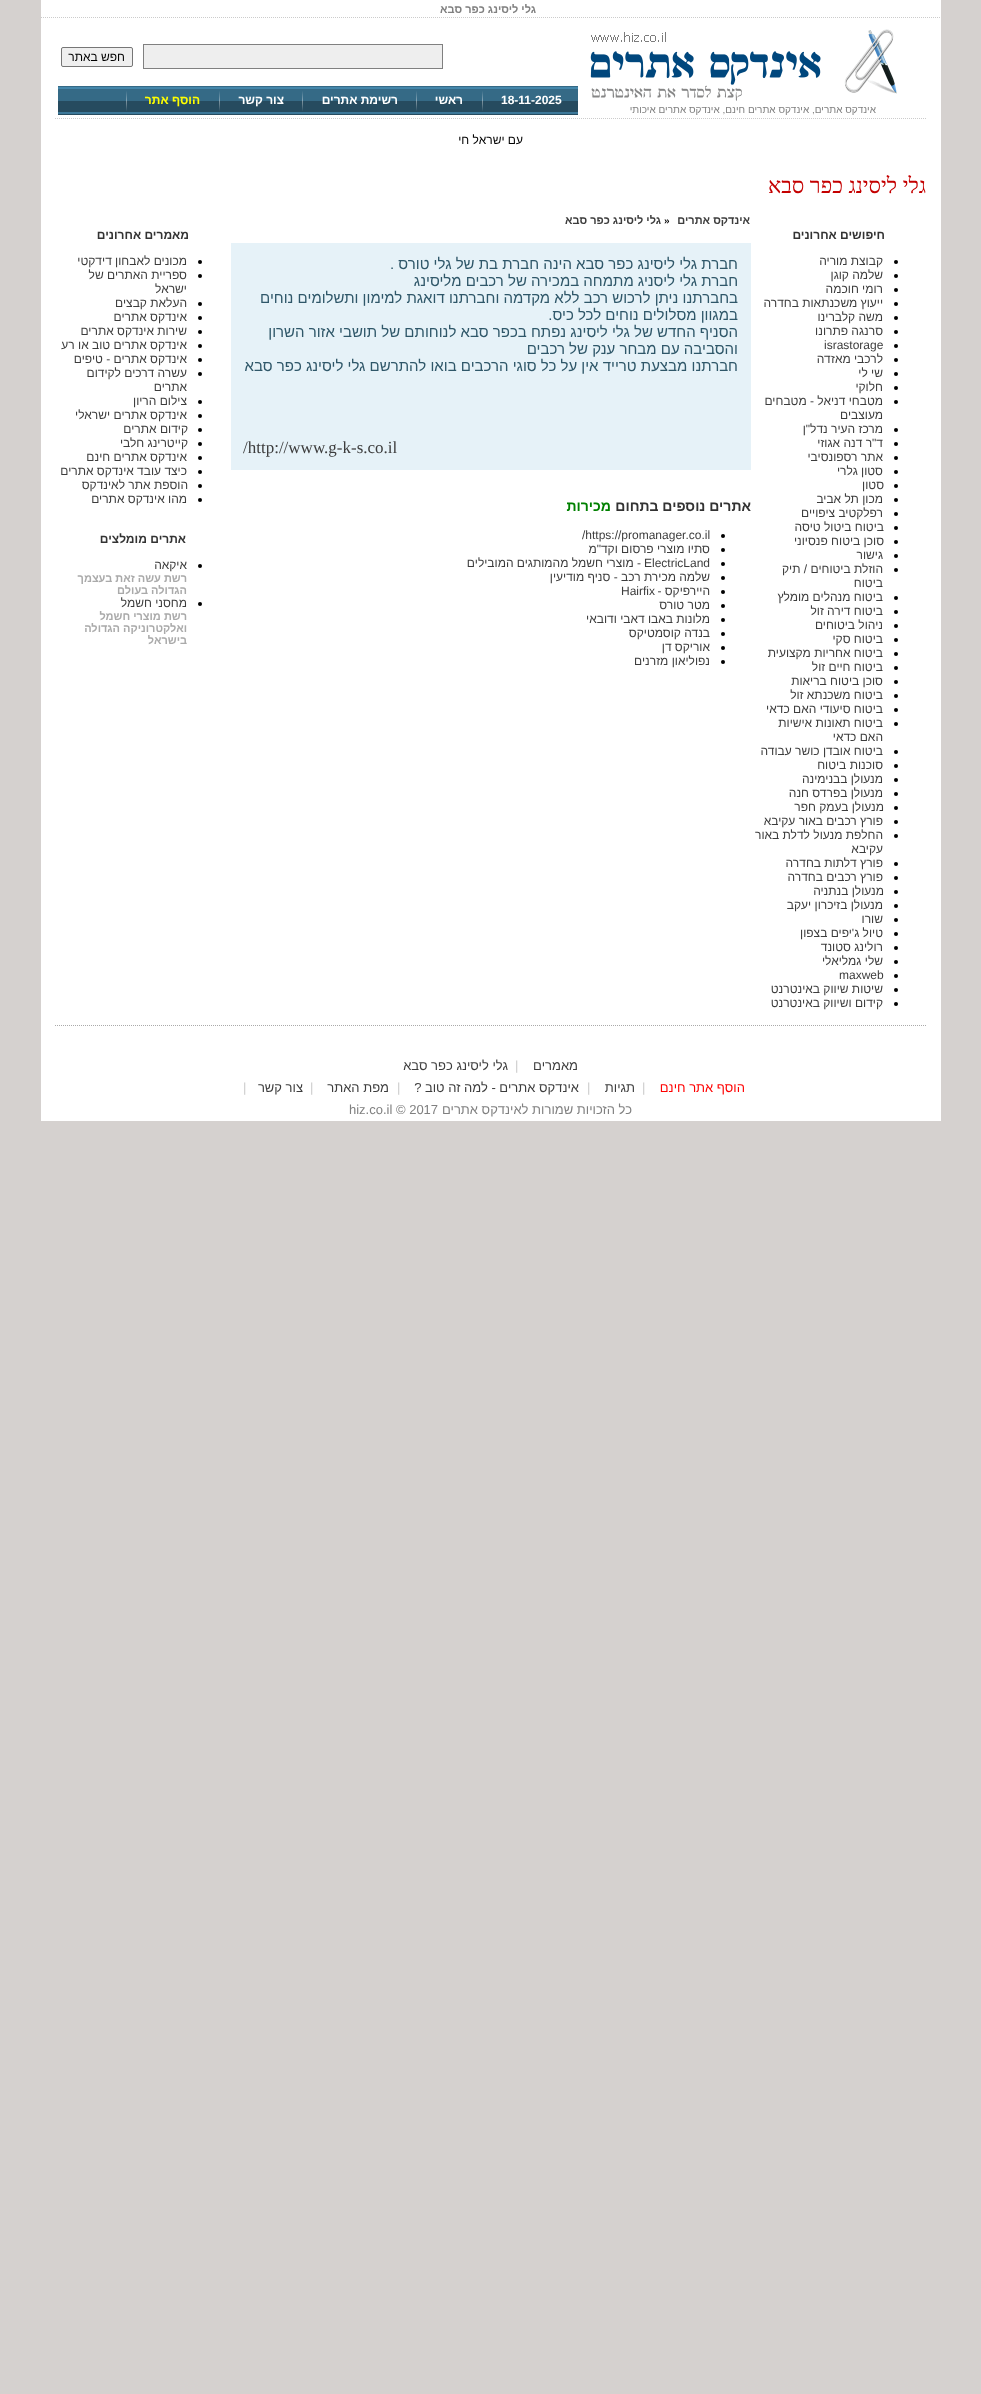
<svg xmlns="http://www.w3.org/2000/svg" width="981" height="2394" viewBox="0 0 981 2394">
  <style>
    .t1 { font: bold 11px Liberation Sans; direction: rtl; fill: #808080; }
    .t2 { font: 12px Liberation Sans; direction: rtl; fill: #000; }
    .t3 { font: bold 12px Liberation Sans; fill: #fff; }
    .t4 { font: bold 12px Liberation Sans; direction: rtl; fill: #fff; }
    .t5 { font: bold 12px Liberation Sans; direction: rtl; fill: #ff0; }
    .t6 { font: 10px Liberation Sans; direction: rtl; fill: #808080; }
    .t7 { font: 22px Liberation Serif; direction: rtl; fill: #c40000; }
    .t8 { font: bold 12px Liberation Sans; direction: rtl; fill: #333; }
    .t9 { font: 12px Liberation Sans; direction: rtl; fill: #3d3d3d; }
    .t10 { font: 12px Liberation Sans; fill: #3d3d3d; }
    .t11 { font: bold 11px Liberation Sans; direction: rtl; fill: #3d3d3d; }
    .t12 { font: bold 10px Liberation Sans; fill: #000; }
    .t13 { font: 15px Liberation Sans; direction: rtl; fill: #2f5769; }
    .t14 { font: 17px Liberation Serif; fill: #3d3d3d; }
    .t15 { font: bold 14px Liberation Sans; direction: rtl; fill: #333; }
    .t16 { font: bold 14px Liberation Sans; direction: rtl; fill: #008000; }
    .t17 { font: bold 11px Liberation Sans; direction: rtl; fill: #aaa; }
    .t18 { font: 13px Liberation Sans; direction: rtl; fill: #3d3d3d; }
    .t19 { font: 13px Liberation Sans; fill: #ccc; }
    .t20 { font: 13px Liberation Sans; direction: rtl; fill: #f00; }
    .t21 { font: 13px Liberation Sans; direction: rtl; fill: #808080; }
    .t22 { font: 13px Liberation Sans; fill: #808080; }
  </style>
  <rect width="100%" height="100%" fill="#d5d1cf"/>
  <rect x="41" y="0" width="900" height="1121" fill="#fff"/>
  <path d="M41 17.5H941" fill="none" stroke="#ccc" stroke-dasharray="1 1"/>
  <text x="536" y="13" class="t1">גלי ליסינג כפר סבא</text>
  <path d="M55 118.5H927" fill="none" stroke="#ccc" stroke-dasharray="1 1"/>
  <rect x="143.5" y="44.5" width="299" height="24" fill="#eee" stroke="#808080"/>
  <rect x="61.5" y="47.5" width="71" height="19" rx="1.5" fill="#efefef" stroke="#767676"/>
  <text x="125" y="61" class="t2">חפש באתר</text>
  <image x="58" y="86" width="520" height="29" href="images/1.png"/>
  <text x="501" y="104" class="t3">18-11-2025</text>
  <image x="482" y="91" width="1" height="20" href="images/2.png"/>
  <text x="463" y="104" class="t4">ראשי</text>
  <image x="416" y="91" width="1" height="20" href="images/2.png"/>
  <text x="398" y="104" class="t4">רשימת אתרים</text>
  <image x="302" y="91" width="1" height="20" href="images/2.png"/>
  <text x="284" y="104" class="t4">צור קשר</text>
  <image x="219" y="91" width="1" height="20" href="images/2.png"/>
  <text x="200" y="104" class="t5">הוסף אתר</text>
  <image x="126" y="91" width="1" height="20" href="images/2.png"/>
  <image x="590" y="29" width="307" height="72" href="images/3.png"/>
  <text x="876" y="113" class="t6">אינדקס אתרים, אינדקס אתרים חינם, אינדקס אתרים איכותי</text>
  <text x="523" y="144" class="t2">עם ישראל חי</text>
  <text x="926" y="193" class="t7">גלי ליסינג כפר סבא</text>
  <text x="885" y="239" class="t8">חיפושים אחרונים</text>
  <circle cx="896" cy="262" r="2" fill="#000"/>
  <text x="883" y="265" class="t9">קבוצת מוריה</text>
  <circle cx="896" cy="276" r="2" fill="#000"/>
  <text x="883" y="279" class="t9">שלמה קוגן</text>
  <circle cx="896" cy="290" r="2" fill="#000"/>
  <text x="883" y="293" class="t9">רומי חוכמה</text>
  <circle cx="896" cy="304" r="2" fill="#000"/>
  <text x="883" y="307" class="t9">ייעוץ משכנתאות בחדרה</text>
  <circle cx="896" cy="318" r="2" fill="#000"/>
  <text x="883" y="321" class="t9">משה קלברינו</text>
  <circle cx="896" cy="332" r="2" fill="#000"/>
  <text x="883" y="335" class="t9">סרנגה פתרונו</text>
  <circle cx="896" cy="346" r="2" fill="#000"/>
  <text x="824" y="349" class="t10">israstorage</text>
  <circle cx="896" cy="360" r="2" fill="#000"/>
  <text x="883" y="363" class="t9">לרכבי מאזדה</text>
  <circle cx="896" cy="374" r="2" fill="#000"/>
  <text x="883" y="377" class="t9">שי לי</text>
  <circle cx="896" cy="388" r="2" fill="#000"/>
  <text x="883" y="391" class="t9">חלוקי</text>
  <circle cx="896" cy="402" r="2" fill="#000"/>
  <text x="883" y="405" class="t9">מטבחי דניאל - מטבחים</text>
  <text x="883" y="419" class="t9">מעוצבים</text>
  <circle cx="896" cy="430" r="2" fill="#000"/>
  <text x="883" y="433" class="t9">מרכז העיר נדל"ן</text>
  <circle cx="896" cy="444" r="2" fill="#000"/>
  <text x="883" y="447" class="t9">ד"ר דנה אגוזי</text>
  <circle cx="896" cy="458" r="2" fill="#000"/>
  <text x="883" y="461" class="t9">אתר רספונסיבי</text>
  <circle cx="896" cy="472" r="2" fill="#000"/>
  <text x="883" y="475" class="t9">סטון גלרי</text>
  <circle cx="896" cy="486" r="2" fill="#000"/>
  <text x="884" y="489" class="t9">סטון</text>
  <circle cx="896" cy="500" r="2" fill="#000"/>
  <text x="883" y="503" class="t9">מכון תל אביב</text>
  <circle cx="896" cy="514" r="2" fill="#000"/>
  <text x="883" y="517" class="t9">רפלקטיב ציפויים</text>
  <circle cx="896" cy="528" r="2" fill="#000"/>
  <text x="884" y="531" class="t9">ביטוח ביטול טיסה</text>
  <circle cx="896" cy="542" r="2" fill="#000"/>
  <text x="884" y="545" class="t9">סוכן ביטוח פנסיוני</text>
  <circle cx="896" cy="556" r="2" fill="#000"/>
  <text x="883" y="559" class="t9">גישור</text>
  <circle cx="896" cy="570" r="2" fill="#000"/>
  <text x="883" y="573" class="t9">הוזלת ביטוחים / תיק</text>
  <text x="883" y="587" class="t9">ביטוח</text>
  <circle cx="896" cy="598" r="2" fill="#000"/>
  <text x="883" y="601" class="t9">ביטוח מנהלים מומלץ</text>
  <circle cx="896" cy="612" r="2" fill="#000"/>
  <text x="883" y="615" class="t9">ביטוח דירה זול</text>
  <circle cx="896" cy="626" r="2" fill="#000"/>
  <text x="883" y="629" class="t9">ניהול ביטוחים</text>
  <circle cx="896" cy="640" r="2" fill="#000"/>
  <text x="883" y="643" class="t9">ביטוח סקי</text>
  <circle cx="896" cy="654" r="2" fill="#000"/>
  <text x="883" y="657" class="t9">ביטוח אחריות מקצועית</text>
  <circle cx="896" cy="668" r="2" fill="#000"/>
  <text x="883" y="671" class="t9">ביטוח חיים זול</text>
  <circle cx="896" cy="682" r="2" fill="#000"/>
  <text x="883" y="685" class="t9">סוכן ביטוח בריאות</text>
  <circle cx="896" cy="696" r="2" fill="#000"/>
  <text x="883" y="699" class="t9">ביטוח משכנתא זול</text>
  <circle cx="896" cy="710" r="2" fill="#000"/>
  <text x="883" y="713" class="t9">ביטוח סיעודי האם כדאי</text>
  <circle cx="896" cy="724" r="2" fill="#000"/>
  <text x="883" y="727" class="t9">ביטוח תאונות אישיות</text>
  <text x="883" y="741" class="t9">האם כדאי</text>
  <circle cx="896" cy="752" r="2" fill="#000"/>
  <text x="883" y="755" class="t9">ביטוח אובדן כושר עבודה</text>
  <circle cx="896" cy="766" r="2" fill="#000"/>
  <text x="883" y="769" class="t9">סוכנות ביטוח</text>
  <circle cx="896" cy="780" r="2" fill="#000"/>
  <text x="883" y="783" class="t9">מנעולן בבנימינה</text>
  <circle cx="896" cy="794" r="2" fill="#000"/>
  <text x="883" y="797" class="t9">מנעולן בפרדס חנה</text>
  <circle cx="896" cy="808" r="2" fill="#000"/>
  <text x="884" y="811" class="t9">מנעולן בעמק חפר</text>
  <circle cx="896" cy="822" r="2" fill="#000"/>
  <text x="883" y="825" class="t9">פורץ רכבים באור עקיבא</text>
  <circle cx="896" cy="836" r="2" fill="#000"/>
  <text x="883" y="839" class="t9">החלפת מנעול לדלת באור</text>
  <text x="883" y="853" class="t9">עקיבא</text>
  <circle cx="896" cy="864" r="2" fill="#000"/>
  <text x="883" y="867" class="t9">פורץ דלתות בחדרה</text>
  <circle cx="896" cy="878" r="2" fill="#000"/>
  <text x="883" y="881" class="t9">פורץ רכבים בחדרה</text>
  <circle cx="896" cy="892" r="2" fill="#000"/>
  <text x="884" y="895" class="t9">מנעולן בנתניה</text>
  <circle cx="896" cy="906" r="2" fill="#000"/>
  <text x="883" y="909" class="t9">מנעולן בזיכרון יעקב</text>
  <circle cx="896" cy="920" r="2" fill="#000"/>
  <text x="883" y="923" class="t9">שורו</text>
  <circle cx="896" cy="934" r="2" fill="#000"/>
  <text x="883" y="937" class="t9">טיול ג'יפים בצפון</text>
  <circle cx="896" cy="948" r="2" fill="#000"/>
  <text x="883" y="951" class="t9">רולינג סטונד</text>
  <circle cx="896" cy="962" r="2" fill="#000"/>
  <text x="883" y="965" class="t9">שלי גמליאלי</text>
  <circle cx="896" cy="976" r="2" fill="#000"/>
  <text x="839" y="979" class="t10">maxweb</text>
  <circle cx="896" cy="990" r="2" fill="#000"/>
  <text x="883" y="993" class="t9">שיטות שיווק באינטרנט</text>
  <circle cx="896" cy="1004" r="2" fill="#000"/>
  <text x="883" y="1007" class="t9">קידום ושיווק באינטרנט</text>
  <text x="750" y="224" class="t11">אינדקס אתרים</text>
  <text x="664" y="224" class="t12">»</text>
  <text x="661" y="224" class="t11">גלי ליסינג כפר סבא</text>
  <rect x="231" y="243" width="520" height="227" fill="#e6f2f8"/>
  <text x="738" y="269" class="t13">חברת גלי ליסינג כפר סבא הינה חברת בת של גלי טורס .</text>
  <text x="738" y="286" class="t13">חברת גלי ליסניג מתמחה במכירה של רכבים מליסינג</text>
  <text x="738" y="303" class="t13">בחברתנו ניתן לרכוש רכב ללא מקדמה וחברתנו דואגת למימון ותשלומים נוחים</text>
  <text x="738" y="320" class="t13">במגוון מסלולים נוחים לכל כיס.</text>
  <text x="738" y="337" class="t13">הסניף החדש של גלי ליסינג נפתח בכפר סבא לנוחותם של תושבי אזור השרון</text>
  <text x="738" y="354" class="t13">והסביבה עם מבחר ענק של רכבים</text>
  <text x="738" y="371" class="t13">חברתנו מבצעת טרייד אין על כל סוגי הרכבים בואו להתרשם גלי ליסינג כפר סבא</text>
  <text x="243" y="453" class="t14">/http://www.g-k-s.co.il</text>
  <text x="751" y="511" class="t15">אתרים נוספים בתחום</text>
  <text x="611" y="511" class="t16">מכירות</text>
  <circle cx="723" cy="536" r="2" fill="#000"/>
  <text x="582" y="539" class="t10">/https://promanager.co.il</text>
  <circle cx="723" cy="550" r="2" fill="#000"/>
  <text x="710" y="553" class="t9">סתיו מוצרי פרסום וקד"מ</text>
  <circle cx="723" cy="564" r="2" fill="#000"/>
  <text x="644" y="567" class="t10">ElectricLand</text>
  <text x="641" y="567" class="t9">- מוצרי חשמל מהמותגים המובילים</text>
  <circle cx="723" cy="578" r="2" fill="#000"/>
  <text x="710" y="581" class="t9">שלמה מכירת רכב - סניף מודיעין</text>
  <circle cx="723" cy="592" r="2" fill="#000"/>
  <text x="710" y="595" class="t9">היירפיקס -</text>
  <text x="621" y="595" class="t10">Hairfix</text>
  <circle cx="723" cy="606" r="2" fill="#000"/>
  <text x="710" y="609" class="t9">מטר טורס</text>
  <circle cx="723" cy="620" r="2" fill="#000"/>
  <text x="710" y="623" class="t9">מלונות באבו דאבי ודובאי</text>
  <circle cx="723" cy="634" r="2" fill="#000"/>
  <text x="710" y="637" class="t9">בנדה קוסמטיקס</text>
  <circle cx="723" cy="648" r="2" fill="#000"/>
  <text x="710" y="651" class="t9">אוריקס דן</text>
  <circle cx="723" cy="662" r="2" fill="#000"/>
  <text x="710" y="665" class="t9">נפוליאון מזרנים</text>
  <text x="189" y="239" class="t8">מאמרים אחרונים</text>
  <circle cx="200" cy="262" r="2" fill="#000"/>
  <text x="187" y="265" class="t9">מכונים לאבחון דידקטי</text>
  <circle cx="200" cy="276" r="2" fill="#000"/>
  <text x="187" y="279" class="t9">ספריית האתרים של</text>
  <text x="187" y="293" class="t9">ישראל</text>
  <circle cx="200" cy="304" r="2" fill="#000"/>
  <text x="187" y="307" class="t9">העלאת קבצים</text>
  <circle cx="200" cy="318" r="2" fill="#000"/>
  <text x="187" y="321" class="t9">אינדקס אתרים</text>
  <circle cx="200" cy="332" r="2" fill="#000"/>
  <text x="187" y="335" class="t9">שירות אינדקס אתרים</text>
  <circle cx="200" cy="346" r="2" fill="#000"/>
  <text x="187" y="349" class="t9">אינדקס אתרים טוב או רע</text>
  <circle cx="200" cy="360" r="2" fill="#000"/>
  <text x="187" y="363" class="t9">אינדקס אתרים - טיפים</text>
  <circle cx="200" cy="374" r="2" fill="#000"/>
  <text x="187" y="377" class="t9">עשרה דרכים לקידום</text>
  <text x="187" y="391" class="t9">אתרים</text>
  <circle cx="200" cy="402" r="2" fill="#000"/>
  <text x="187" y="405" class="t9">צילום הריון</text>
  <circle cx="200" cy="416" r="2" fill="#000"/>
  <text x="187" y="419" class="t9">אינדקס אתרים ישראלי</text>
  <circle cx="200" cy="430" r="2" fill="#000"/>
  <text x="188" y="433" class="t9">קידום אתרים</text>
  <circle cx="200" cy="444" r="2" fill="#000"/>
  <text x="188" y="447" class="t9">קייטרינג חלבי</text>
  <circle cx="200" cy="458" r="2" fill="#000"/>
  <text x="187" y="461" class="t9">אינדקס אתרים חינם</text>
  <circle cx="200" cy="472" r="2" fill="#000"/>
  <text x="187" y="475" class="t9">כיצד עובד אינדקס אתרים</text>
  <circle cx="200" cy="486" r="2" fill="#000"/>
  <text x="188" y="489" class="t9">הוספת אתר לאינדקס</text>
  <circle cx="200" cy="500" r="2" fill="#000"/>
  <text x="187" y="503" class="t9">מהו אינדקס אתרים</text>
  <text x="186" y="543" class="t8">אתרים מומלצים</text>
  <circle cx="200" cy="566" r="2" fill="#000"/>
  <text x="187" y="569" class="t9">איקאה</text>
  <text x="187" y="582" class="t17">רשת עשה זאת בעצמך</text>
  <text x="187" y="594" class="t17">הגדולה בעולם</text>
  <circle cx="200" cy="604" r="2" fill="#000"/>
  <text x="187" y="607" class="t9">מחסני חשמל</text>
  <text x="187" y="620" class="t17">רשת מוצרי חשמל</text>
  <text x="187" y="632" class="t17">ואלקטרוניקה הגדולה</text>
  <text x="187" y="644" class="t17">בישראל</text>
  <path d="M55 1025.5H927" fill="none" stroke="#aaa" stroke-dasharray="1 1"/>
  <text x="578" y="1070" class="t18">מאמרים</text>
  <text x="515" y="1070" class="t19">|</text>
  <text x="508" y="1070" class="t18">גלי ליסינג כפר סבא</text>
  <text x="745" y="1092" class="t20">הוסף אתר חינם</text>
  <text x="642" y="1092" class="t19">|</text>
  <text x="635" y="1092" class="t18">תגיות</text>
  <text x="587" y="1092" class="t19">|</text>
  <text x="579" y="1092" class="t18">אינדקס אתרים - למה זה טוב ?</text>
  <text x="397" y="1092" class="t19">|</text>
  <text x="389" y="1092" class="t18">מפת האתר</text>
  <text x="310" y="1092" class="t19">|</text>
  <text x="303" y="1092" class="t18">צור קשר</text>
  <text x="243" y="1092" class="t19">|</text>
  <text x="632" y="1114" class="t21">כל הזכויות שמורות לאינדקס אתרים</text>
  <text x="349" y="1114" class="t22">hiz.co.il © 2017</text>
</svg>
